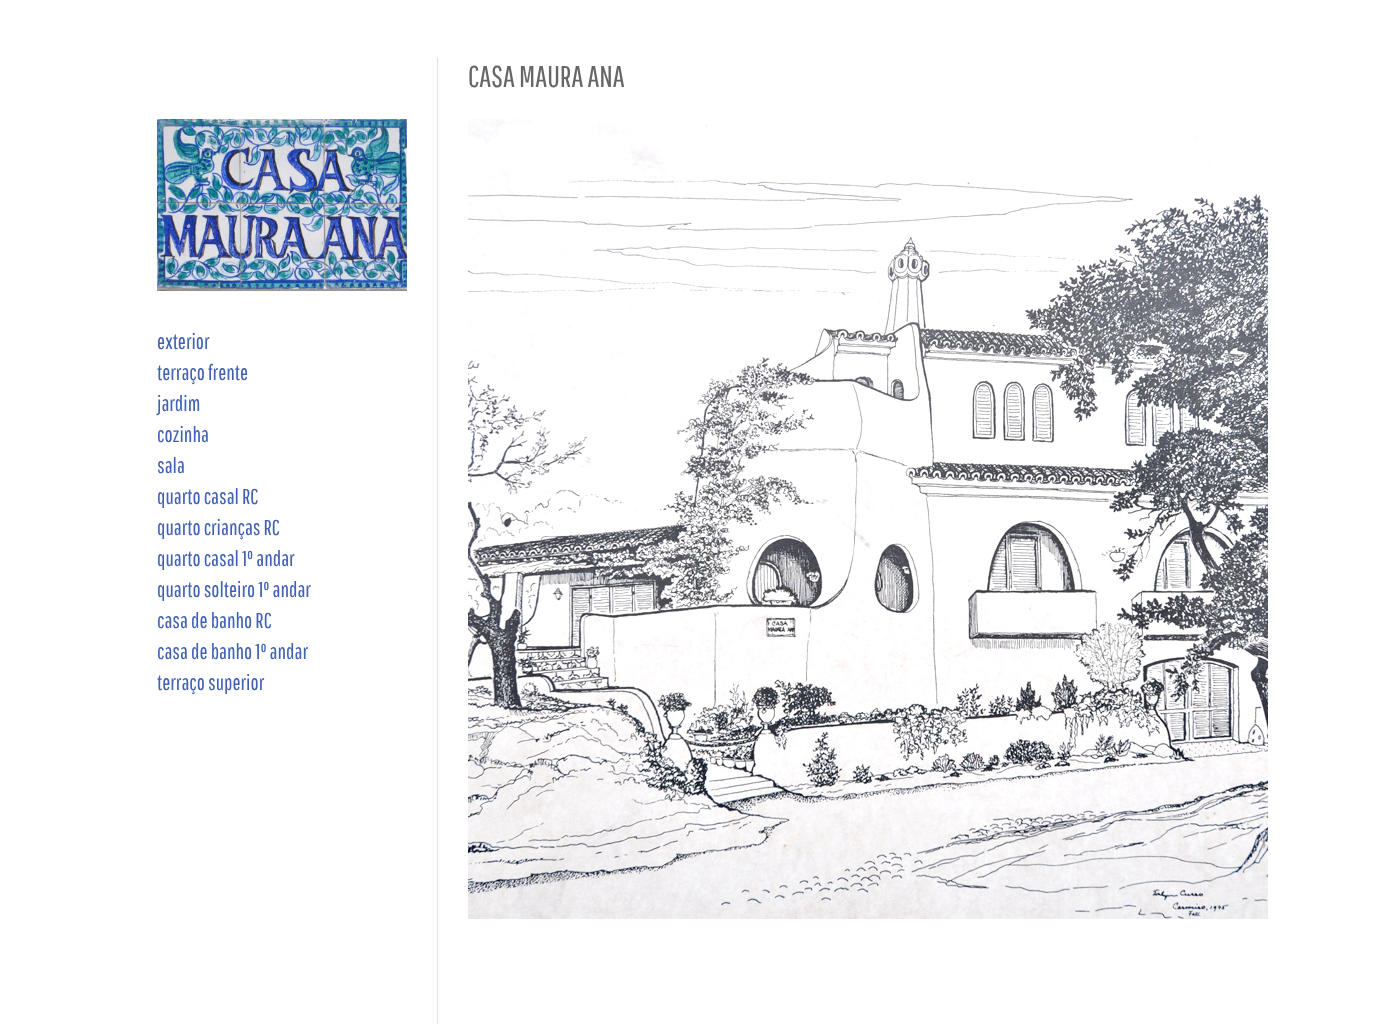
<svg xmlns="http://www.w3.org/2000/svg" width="1384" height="1024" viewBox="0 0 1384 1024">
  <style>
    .t1 { font: 30px Pathway Gothic One; fill: #666; }
    .t2 { font: 21.5px Pathway Gothic One; fill: #4161b5; }
  </style>
  <rect width="100%" height="100%" fill="#fff"/>
  <rect x="437" y="58" width="1" height="966" fill="#ffe1a9"/>
  <text x="468" y="87" class="t1">CASA MAURA ANA</text>
  <image x="468" y="119" width="800" height="800" href="images/1.png"/>
  <image x="157" y="119" width="250" height="172" href="images/2.png"/>
  <text x="157" y="349" class="t2">exterior</text>
  <text x="157" y="380" class="t2">terraço frente</text>
  <text x="157" y="411" class="t2">jardim</text>
  <text x="157" y="442" class="t2">cozinha</text>
  <text x="157" y="473" class="t2">sala</text>
  <text x="157" y="504" class="t2">quarto casal RC</text>
  <text x="157" y="535" class="t2">quarto crianças RC</text>
  <text x="157" y="566" class="t2">quarto casal 1º andar</text>
  <text x="157" y="597" class="t2">quarto solteiro 1º andar</text>
  <text x="157" y="628" class="t2">casa de banho RC</text>
  <text x="157" y="659" class="t2">casa de banho 1º andar</text>
  <text x="157" y="690" class="t2">terraço superior</text>
</svg>
